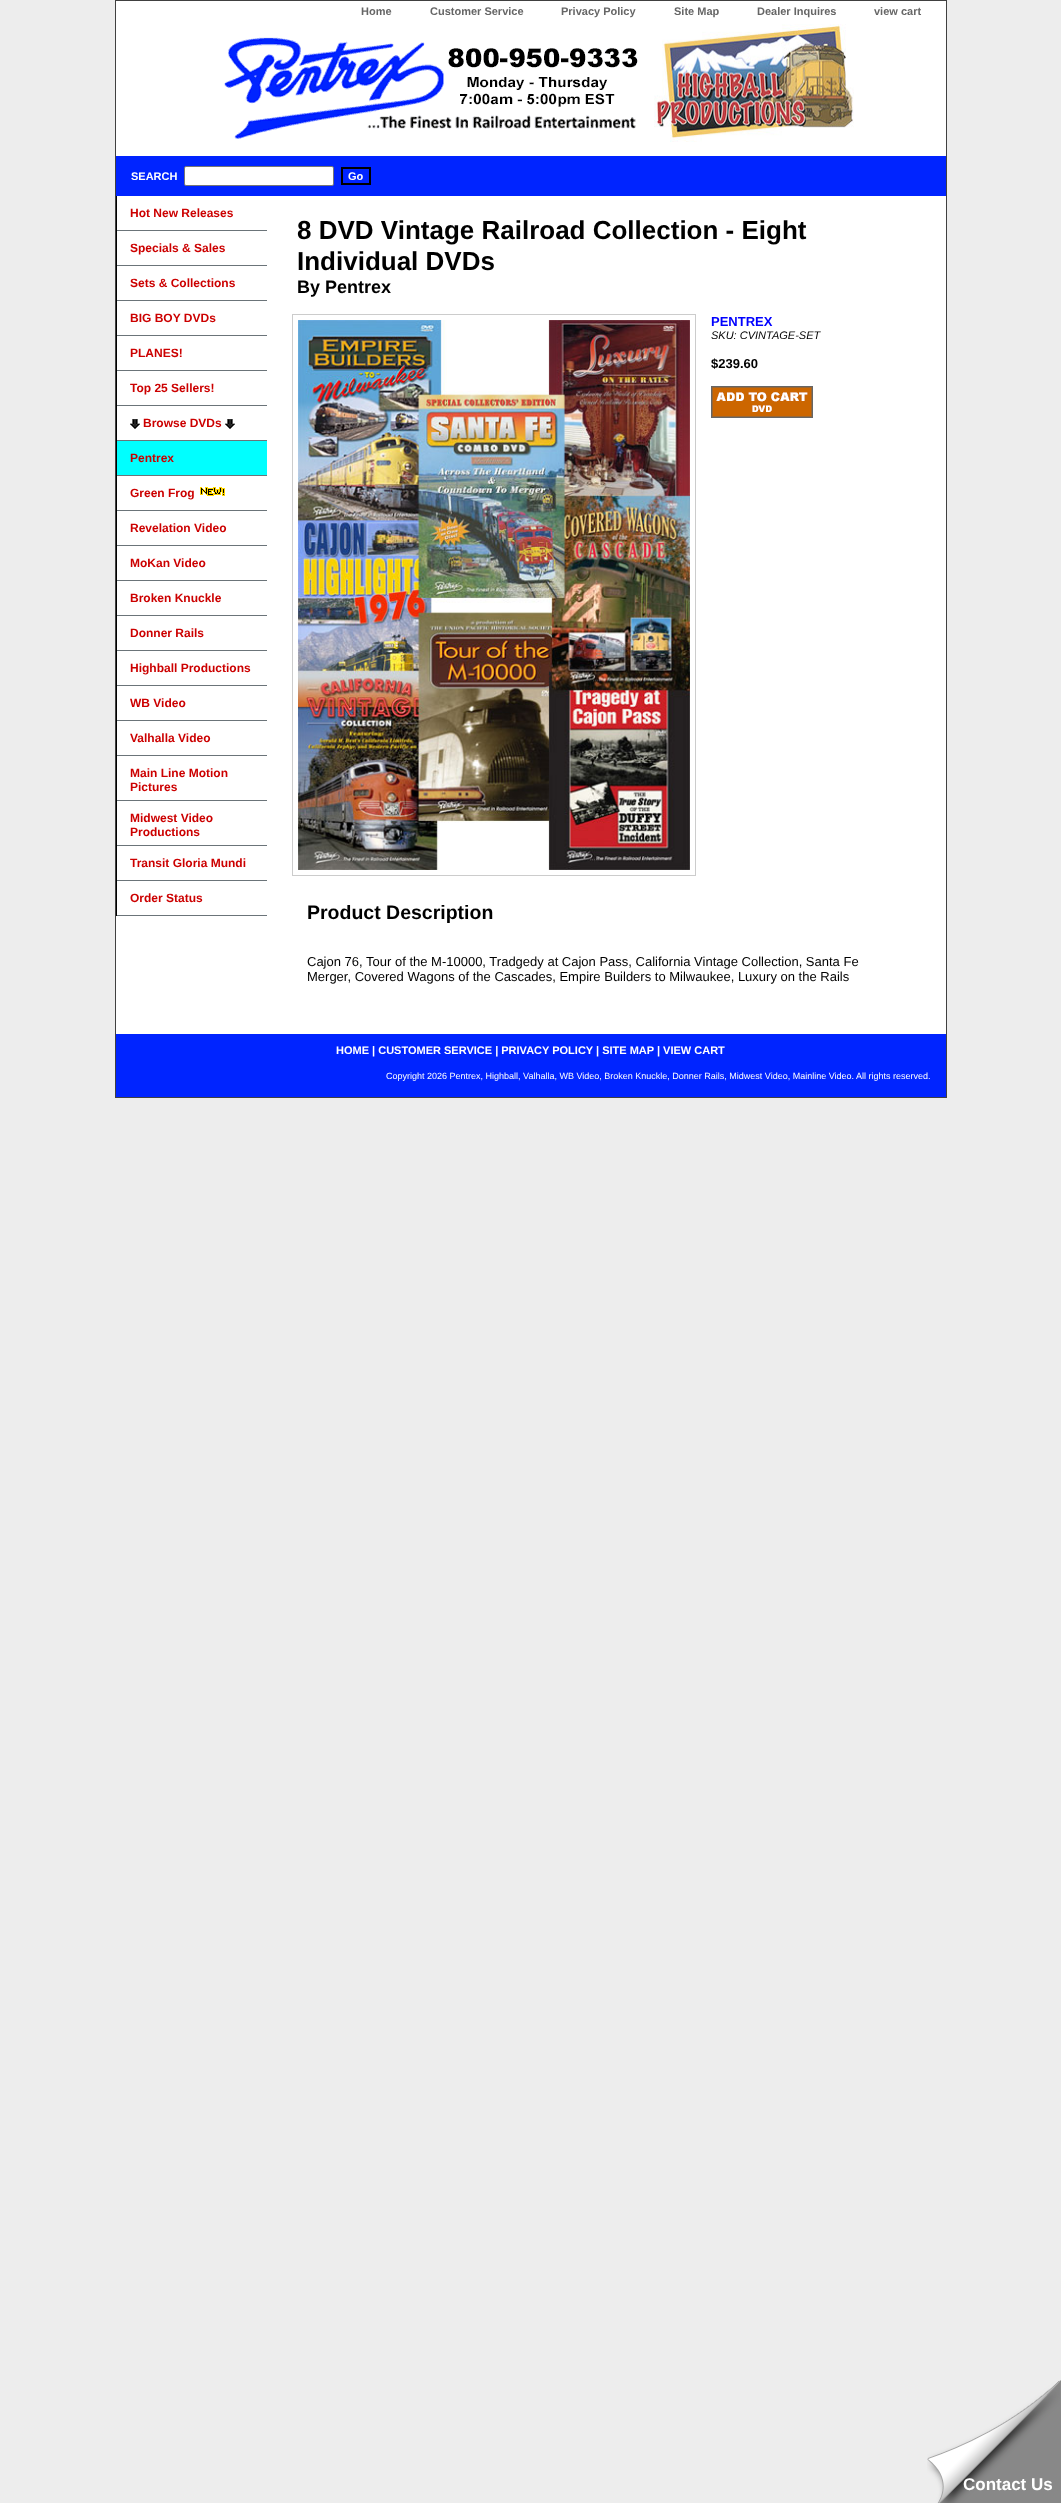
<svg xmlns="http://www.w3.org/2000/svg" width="1061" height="2503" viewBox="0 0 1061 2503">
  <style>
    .t1 { font: bold 11px Liberation Sans; fill: #666; }
    .t2 { font: bold 11px Liberation Sans; fill: #fff; }
    .t3 { font: bold 12px Liberation Sans; fill: #c00; }
    .t4 { font: bold 26px Liberation Sans; fill: #000; }
    .t5 { font: bold 18px Liberation Sans; fill: #000; }
    .t6 { font: bold 13px Liberation Sans; fill: #00f; }
    .t7 { font: italic 11px Liberation Sans; fill: #000; }
    .t8 { font: bold 13px Liberation Sans; fill: #000; }
    .t9 { font: bold 19.5px Liberation Sans; fill: #000; }
    .t10 { font: 13px Liberation Sans; fill: #000; }
    .t11 { font: 9px Liberation Sans; fill: #fff; }
    .t12 { font: bold 17px Liberation Sans; fill: #fff; }
  </style>
  <rect width="100%" height="100%" fill="#ededed"/>
  <rect x="116" y="1" width="830" height="1033" fill="#fff"/>
  <rect x="115.5" y="0.5" width="831" height="1097" fill="none" stroke="#404040"/>
  <text x="361" y="15" class="t1">Home</text>
  <text x="430" y="15" class="t1">Customer Service</text>
  <text x="561" y="15" class="t1">Privacy Policy</text>
  <text x="674" y="15" class="t1">Site Map</text>
  <text x="757" y="15" class="t1">Dealer Inquires</text>
  <text x="874" y="15" class="t1">view cart</text>
  <image x="224" y="37" width="414" height="102" href="images/1.png"/>
  <image x="654" y="24" width="200" height="118" href="images/2.png"/>
  <rect x="116" y="156" width="830" height="40" fill="#0024ff"/>
  <text x="131" y="180" class="t2">SEARCH</text>
  <rect x="184.5" y="166.5" width="149" height="19" rx="1.5" fill="#fff" stroke="#767676"/>
  <rect x="342" y="168" width="28" height="16" fill="none" stroke="#000" stroke-width="2"/>
  <text x="348" y="180" class="t2">Go</text>
  <rect x="116" y="196" width="1" height="720" fill="#000"/>
  <rect x="117" y="230" width="150" height="1" fill="#6b7479"/>
  <text x="130" y="217" class="t3">Hot New Releases</text>
  <rect x="117" y="265" width="150" height="1" fill="#6b7479"/>
  <text x="130" y="252" class="t3">Specials &amp; Sales</text>
  <rect x="117" y="300" width="150" height="1" fill="#6b7479"/>
  <text x="130" y="287" class="t3">Sets &amp; Collections</text>
  <rect x="117" y="335" width="150" height="1" fill="#6b7479"/>
  <text x="130" y="322" class="t3">BIG BOY DVDs</text>
  <rect x="117" y="370" width="150" height="1" fill="#6b7479"/>
  <text x="130" y="357" class="t3">PLANES!</text>
  <rect x="117" y="405" width="150" height="1" fill="#6b7479"/>
  <text x="130" y="392" class="t3">Top 25 Sellers!</text>
  <rect x="117" y="440" width="150" height="1" fill="#6b7479"/>
  <image x="130" y="419" width="10" height="10" href="images/3.png"/>
  <text x="143" y="427" class="t3">Browse DVDs</text>
  <image x="225" y="419" width="10" height="10" href="images/3.png"/>
  <rect x="117" y="441" width="150" height="34" fill="#0ff"/>
  <rect x="117" y="475" width="150" height="1" fill="#6b7479"/>
  <text x="130" y="462" class="t3">Pentrex</text>
  <rect x="117" y="510" width="150" height="1" fill="#6b7479"/>
  <text x="130" y="497" class="t3">Green Frog</text>
  <image x="200" y="487" width="25" height="9" href="images/4.png"/>
  <rect x="117" y="545" width="150" height="1" fill="#6b7479"/>
  <text x="130" y="532" class="t3">Revelation Video</text>
  <rect x="117" y="580" width="150" height="1" fill="#6b7479"/>
  <text x="130" y="567" class="t3">MoKan Video</text>
  <rect x="117" y="615" width="150" height="1" fill="#6b7479"/>
  <text x="130" y="602" class="t3">Broken Knuckle</text>
  <rect x="117" y="650" width="150" height="1" fill="#6b7479"/>
  <text x="130" y="637" class="t3">Donner Rails</text>
  <rect x="117" y="685" width="150" height="1" fill="#6b7479"/>
  <text x="130" y="672" class="t3">Highball Productions</text>
  <rect x="117" y="720" width="150" height="1" fill="#6b7479"/>
  <text x="130" y="707" class="t3">WB Video</text>
  <rect x="117" y="755" width="150" height="1" fill="#6b7479"/>
  <text x="130" y="742" class="t3">Valhalla Video</text>
  <rect x="117" y="800" width="150" height="1" fill="#6b7479"/>
  <text x="130" y="777" class="t3">Main Line Motion</text>
  <text x="130" y="791" class="t3">Pictures</text>
  <rect x="117" y="845" width="150" height="1" fill="#6b7479"/>
  <text x="130" y="822" class="t3">Midwest Video</text>
  <text x="130" y="836" class="t3">Productions</text>
  <rect x="117" y="880" width="150" height="1" fill="#6b7479"/>
  <text x="130" y="867" class="t3">Transit Gloria Mundi</text>
  <rect x="117" y="915" width="150" height="1" fill="#6b7479"/>
  <text x="130" y="902" class="t3">Order Status</text>
  <text x="297" y="239" class="t4">8 DVD Vintage Railroad Collection - Eight</text>
  <text x="297" y="270" class="t4">Individual DVDs</text>
  <text x="297" y="293" class="t5">By Pentrex</text>
  <rect x="292.5" y="314.5" width="403" height="561" fill="none" stroke="#ccc"/>
  <image x="298" y="320" width="392" height="550" href="images/5.png"/>
  <text x="711" y="326" class="t6">PENTREX</text>
  <text x="711" y="339" class="t7">SKU: CVINTAGE-SET</text>
  <text x="711" y="368" class="t8">$239.60</text>
  <image x="711" y="386" width="102" height="32" href="images/6.png"/>
  <text x="307" y="919" class="t9">Product Description</text>
  <text x="307" y="966" class="t10">Cajon 76, Tour of the M-10000, Tradgedy at Cajon Pass, California Vintage Collection, Santa Fe</text>
  <text x="307" y="981" class="t10">Merger, Covered Wagons of the Cascades, Empire Builders to Milwaukee, Luxury on the Rails</text>
  <rect x="116" y="1034" width="830" height="63" fill="#0024ff"/>
  <text x="336" y="1054" class="t2">HOME | CUSTOMER SERVICE | PRIVACY POLICY | SITE MAP | VIEW CART</text>
  <text x="386" y="1079" class="t11">Copyright 2026 Pentrex, Highball, Valhalla, WB Video, Broken Knuckle, Donner Rails, Midwest Video, Mainline Video. All rights reserved.</text>
  <path d="M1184 2503H938L1061 2380Z" fill="#888"/>
  <image x="927" y="2380" width="133" height="123" href="images/7.png"/>
  <text x="963" y="2490" class="t12">Contact Us</text>
</svg>
